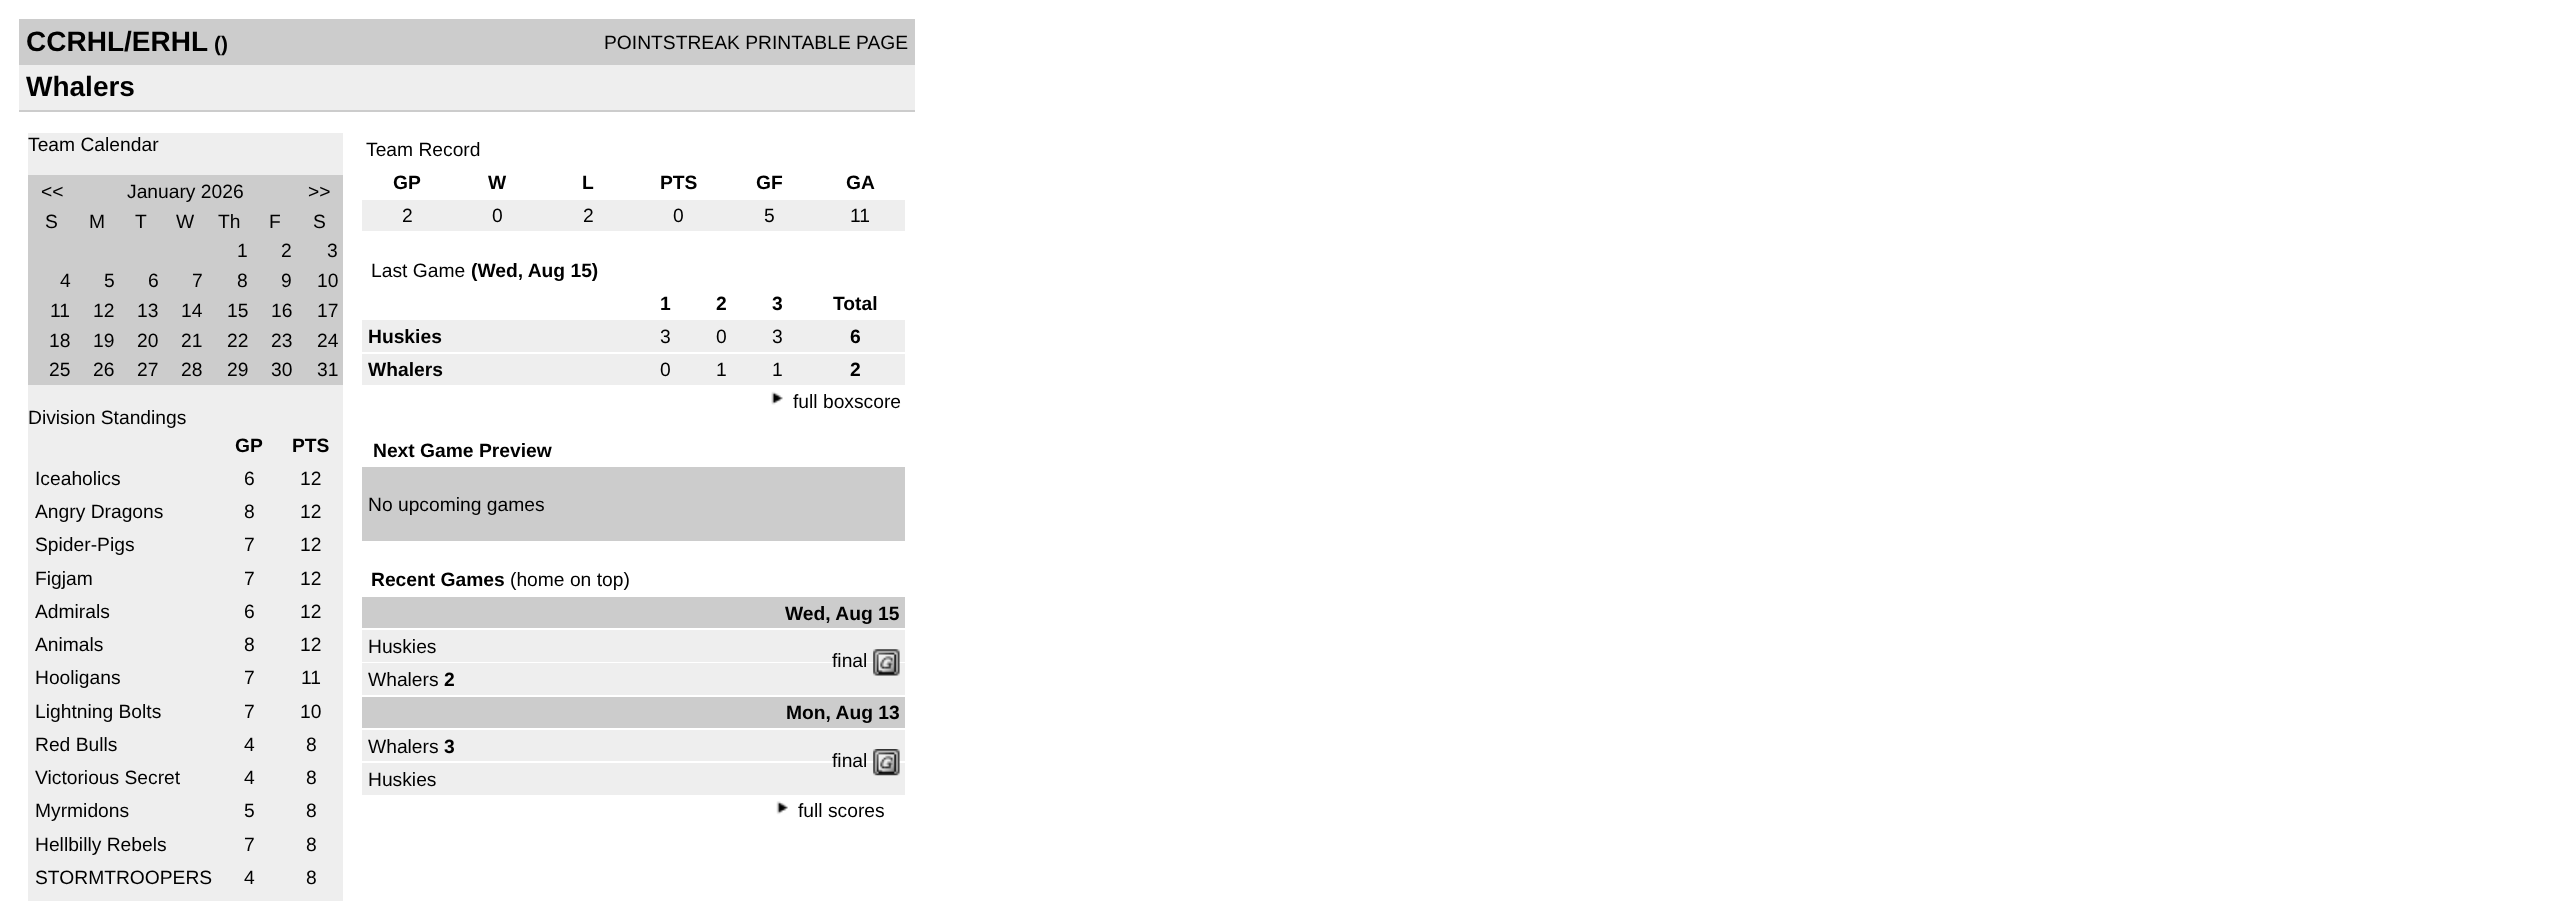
<svg xmlns="http://www.w3.org/2000/svg" width="2553" height="901" viewBox="0 0 2553 901">
  <style>
    .t1 { font: bold 28px Liberation Sans; fill: #000; }
    .t2 { font: bold 21px Liberation Sans; fill: #000; }
    .t3 { font: 19.25px Liberation Sans; fill: #000; }
    .t4 { font: bold 19.25px Liberation Sans; fill: #000; }
  </style>
  <rect width="100%" height="100%" fill="#fff"/>
  <rect x="19" y="19" width="896" height="46" fill="#ccc"/>
  <text x="26" y="51" class="t1">CCRHL/ERHL</text>
  <text x="214" y="51" class="t2">()</text>
  <text x="604" y="49" class="t3">POINTSTREAK PRINTABLE PAGE</text>
  <rect x="19" y="65" width="896" height="45" fill="#eee"/>
  <text x="26" y="96" class="t1">Whalers</text>
  <rect x="19" y="110" width="896" height="2" fill="#ccc"/>
  <rect x="28" y="133" width="315" height="768" fill="#eee"/>
  <text x="28" y="151" class="t3">Team Calendar</text>
  <rect x="28" y="175" width="315" height="210" fill="#ccc"/>
  <text x="41" y="198" class="t3">&lt;&lt;</text>
  <text x="127" y="198" class="t3">January 2026</text>
  <text x="308" y="198" class="t3">&gt;&gt;</text>
  <text x="45" y="228" class="t3">S</text>
  <text x="89" y="228" class="t3">M</text>
  <text x="135" y="228" class="t3">T</text>
  <text x="176" y="228" class="t3">W</text>
  <text x="218" y="228" class="t3">Th</text>
  <text x="269" y="228" class="t3">F</text>
  <text x="313" y="228" class="t3">S</text>
  <text x="237" y="257" class="t3">1</text>
  <text x="281" y="257" class="t3">2</text>
  <text x="327" y="257" class="t3">3</text>
  <text x="60" y="287" class="t3">4</text>
  <text x="104" y="287" class="t3">5</text>
  <text x="148" y="287" class="t3">6</text>
  <text x="192" y="287" class="t3">7</text>
  <text x="237" y="287" class="t3">8</text>
  <text x="281" y="287" class="t3">9</text>
  <text x="317" y="287" class="t3">10</text>
  <text x="50" y="317" class="t3">11</text>
  <text x="93" y="317" class="t3">12</text>
  <text x="137" y="317" class="t3">13</text>
  <text x="181" y="317" class="t3">14</text>
  <text x="227" y="317" class="t3">15</text>
  <text x="271" y="317" class="t3">16</text>
  <text x="317" y="317" class="t3">17</text>
  <text x="49" y="347" class="t3">18</text>
  <text x="93" y="347" class="t3">19</text>
  <text x="137" y="347" class="t3">20</text>
  <text x="181" y="347" class="t3">21</text>
  <text x="227" y="347" class="t3">22</text>
  <text x="271" y="347" class="t3">23</text>
  <text x="317" y="347" class="t3">24</text>
  <text x="49" y="376" class="t3">25</text>
  <text x="93" y="376" class="t3">26</text>
  <text x="137" y="376" class="t3">27</text>
  <text x="181" y="376" class="t3">28</text>
  <text x="227" y="376" class="t3">29</text>
  <text x="271" y="376" class="t3">30</text>
  <text x="317" y="376" class="t3">31</text>
  <text x="28" y="424" class="t3">Division Standings</text>
  <text x="235" y="452" class="t4">GP</text>
  <text x="292" y="452" class="t4">PTS</text>
  <text x="35" y="485" class="t3">Iceaholics</text>
  <text x="244" y="485" class="t3">6</text>
  <text x="300" y="485" class="t3">12</text>
  <text x="35" y="518" class="t3">Angry Dragons</text>
  <text x="244" y="518" class="t3">8</text>
  <text x="300" y="518" class="t3">12</text>
  <text x="35" y="551" class="t3">Spider-Pigs</text>
  <text x="244" y="551" class="t3">7</text>
  <text x="300" y="551" class="t3">12</text>
  <text x="35" y="585" class="t3">Figjam</text>
  <text x="244" y="585" class="t3">7</text>
  <text x="300" y="585" class="t3">12</text>
  <text x="35" y="618" class="t3">Admirals</text>
  <text x="244" y="618" class="t3">6</text>
  <text x="300" y="618" class="t3">12</text>
  <text x="35" y="651" class="t3">Animals</text>
  <text x="244" y="651" class="t3">8</text>
  <text x="300" y="651" class="t3">12</text>
  <text x="35" y="684" class="t3">Hooligans</text>
  <text x="244" y="684" class="t3">7</text>
  <text x="301" y="684" class="t3">11</text>
  <text x="35" y="718" class="t3">Lightning Bolts</text>
  <text x="244" y="718" class="t3">7</text>
  <text x="300" y="718" class="t3">10</text>
  <text x="35" y="751" class="t3">Red Bulls</text>
  <text x="244" y="751" class="t3">4</text>
  <text x="306" y="751" class="t3">8</text>
  <text x="35" y="784" class="t3">Victorious Secret</text>
  <text x="244" y="784" class="t3">4</text>
  <text x="306" y="784" class="t3">8</text>
  <text x="35" y="817" class="t3">Myrmidons</text>
  <text x="244" y="817" class="t3">5</text>
  <text x="306" y="817" class="t3">8</text>
  <text x="35" y="851" class="t3">Hellbilly Rebels</text>
  <text x="244" y="851" class="t3">7</text>
  <text x="306" y="851" class="t3">8</text>
  <text x="35" y="884" class="t3">STORMTROOPERS</text>
  <text x="244" y="884" class="t3">4</text>
  <text x="306" y="884" class="t3">8</text>
  <text x="366" y="156" class="t3">Team Record</text>
  <text x="393" y="189" class="t4">GP</text>
  <text x="488" y="189" class="t4">W</text>
  <text x="582" y="189" class="t4">L</text>
  <text x="660" y="189" class="t4">PTS</text>
  <text x="756" y="189" class="t4">GF</text>
  <text x="846" y="189" class="t4">GA</text>
  <rect x="362" y="200" width="543" height="31" fill="#eee"/>
  <text x="402" y="222" class="t3">2</text>
  <text x="492" y="222" class="t3">0</text>
  <text x="583" y="222" class="t3">2</text>
  <text x="673" y="222" class="t3">0</text>
  <text x="764" y="222" class="t3">5</text>
  <text x="850" y="222" class="t3">11</text>
  <text x="371" y="277" class="t3">Last Game</text>
  <text x="471" y="277" class="t4">(Wed, Aug 15)</text>
  <text x="660" y="310" class="t4">1</text>
  <text x="716" y="310" class="t4">2</text>
  <text x="772" y="310" class="t4">3</text>
  <text x="833" y="310" class="t4">Total</text>
  <rect x="362" y="320" width="543" height="32" fill="#eee"/>
  <text x="368" y="343" class="t4">Huskies</text>
  <text x="660" y="343" class="t3">3</text>
  <text x="716" y="343" class="t3">0</text>
  <text x="772" y="343" class="t3">3</text>
  <text x="850" y="343" class="t4">6</text>
  <rect x="362" y="354" width="543" height="31" fill="#eee"/>
  <text x="368" y="376" class="t4">Whalers</text>
  <text x="660" y="376" class="t3">0</text>
  <text x="716" y="376" class="t3">1</text>
  <text x="772" y="376" class="t3">1</text>
  <text x="850" y="376" class="t4">2</text>
  <image x="771" y="391" width="12" height="14" href="images/1.png"/>
  <text x="793" y="408" class="t3">full boxscore</text>
  <text x="373" y="457" class="t4">Next Game Preview</text>
  <rect x="362" y="467" width="543" height="74" fill="#ccc"/>
  <text x="368" y="511" class="t3">No upcoming games</text>
  <text x="371" y="586" class="t4">Recent Games</text>
  <text x="510" y="586" class="t3">(home on top)</text>
  <rect x="362" y="597" width="543" height="31" fill="#ccc"/>
  <text x="785" y="620" class="t4">Wed, Aug 15</text>
  <rect x="362" y="630" width="543" height="32" fill="#eee"/>
  <text x="368" y="653" class="t3">Huskies</text>
  <rect x="362" y="663" width="543" height="32" fill="#eee"/>
  <text x="832" y="667" class="t3">final</text>
  <image x="873" y="649" width="27" height="27" href="images/2.png"/>
  <text x="368" y="686" class="t3">Whalers</text>
  <text x="444" y="686" class="t4">2</text>
  <rect x="362" y="697" width="543" height="31" fill="#ccc"/>
  <text x="786" y="719" class="t4">Mon, Aug 13</text>
  <rect x="362" y="730" width="543" height="31" fill="#eee"/>
  <text x="368" y="753" class="t3">Whalers</text>
  <text x="444" y="753" class="t4">3</text>
  <rect x="362" y="763" width="543" height="32" fill="#eee"/>
  <text x="832" y="767" class="t3">final</text>
  <image x="873" y="749" width="27" height="27" href="images/3.png"/>
  <text x="368" y="786" class="t3">Huskies</text>
  <image x="776" y="801" width="12" height="14" href="images/4.png"/>
  <text x="798" y="817" class="t3">full scores</text>
</svg>
